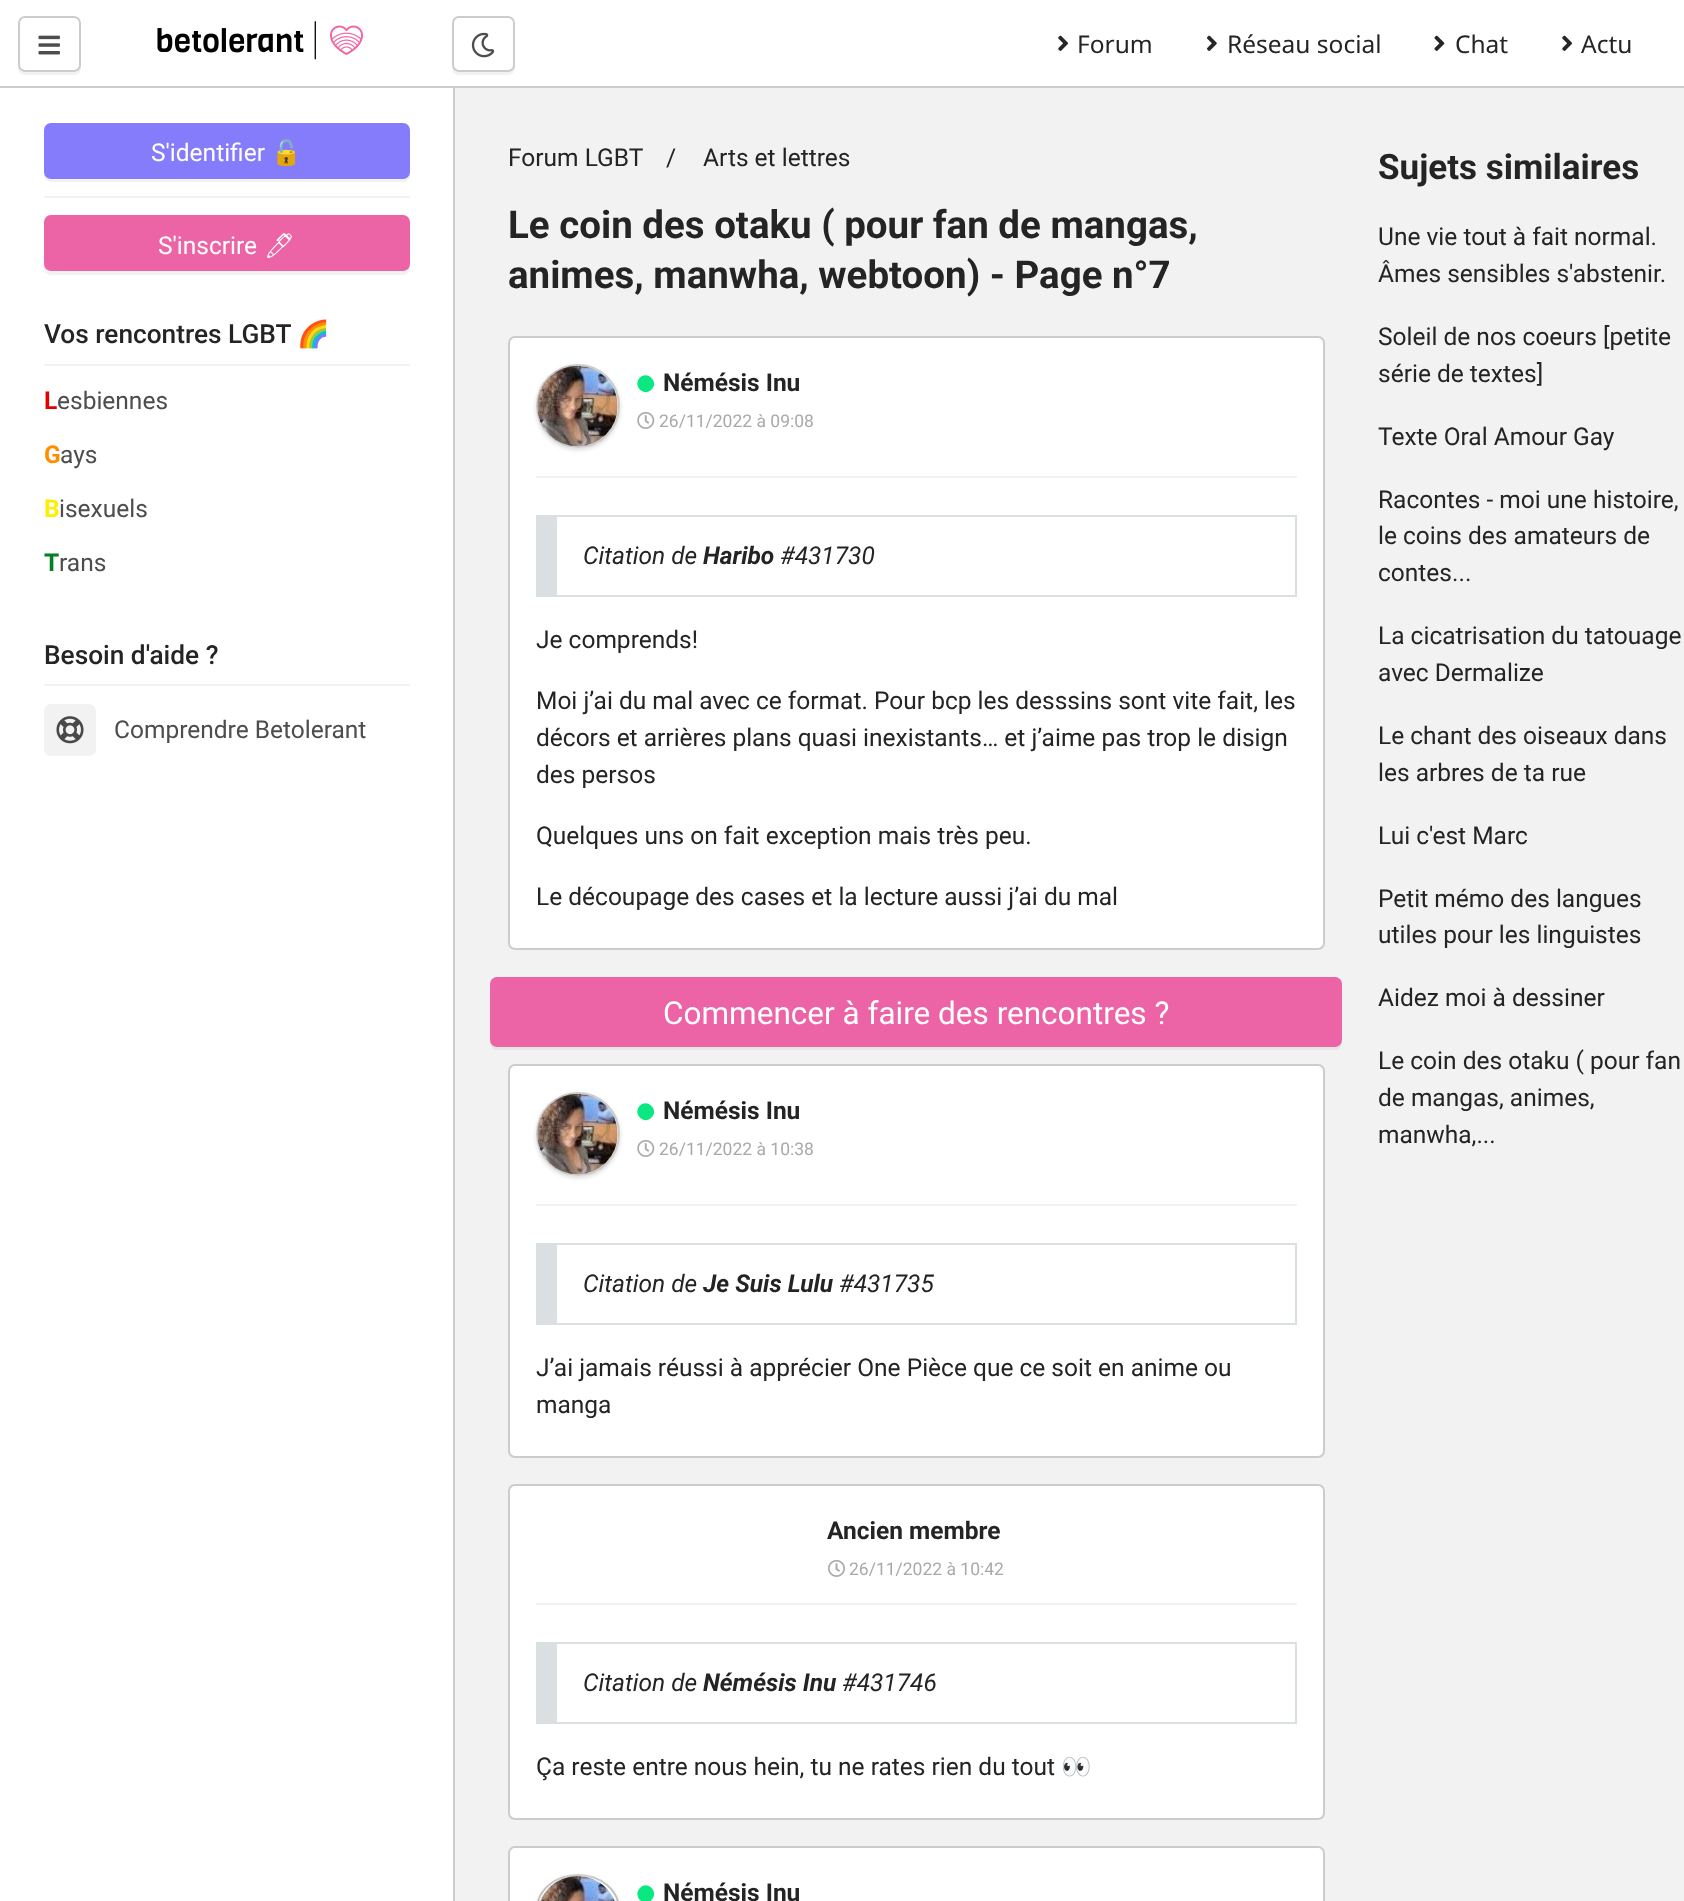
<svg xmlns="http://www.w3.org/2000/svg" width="1684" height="1901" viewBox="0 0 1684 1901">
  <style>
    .t1 { font: 24.5px Noto Sans; fill: #242424; }
    .t2 { font: 24.5px Roboto; fill: #fff; }
    .t3 { font: 24.5px Noto Color Emoji; fill: #fff; }
    .t4 { font: 24.5px Noto Emoji; fill: #fff; }
    .t5 { font: 500 26.25px Roboto; fill: #242424; }
    .t6 { font: 26.25px Noto Color Emoji; fill: #242424; }
    .t7 { font: bold 24.5px Roboto; fill: #e50000; }
    .t8 { font: 24.5px Roboto; fill: #4d4d4d; }
    .t9 { font: bold 24.5px Roboto; fill: #ff8d00; }
    .t10 { font: bold 24.5px Roboto; fill: #fe0; }
    .t11 { font: bold 24.5px Roboto; fill: #028121; }
    .t12 { font: 24.5px Roboto; fill: #242424; }
    .t13 { font: bold 38.5px Roboto; fill: #242424; }
    .t14 { font: bold 24.5px Roboto; fill: #242424; }
    .t15 { font: 17.5px Roboto; fill: #a9a9a9; }
    .t16 { font: italic 24.5px Roboto; fill: #242424; }
    .t17 { font: italic bold 24.5px Roboto; fill: #242424; }
    .t18 { font: 31.5px Roboto; fill: #fff; }
    .t19 { font: 24.5px Noto Color Emoji; fill: #242424; }
    .t20 { font: bold 35px Roboto; fill: #242424; }
  </style>
  <defs>
    <clipPath id="clip1"><path d="M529 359H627V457H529ZM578 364C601 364 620 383 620 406C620 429 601 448 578 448C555 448 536 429 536 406C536 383 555 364 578 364Z" clip-rule="evenodd"/></clipPath>
    <clipPath id="clip2"><path d="M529 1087H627V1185H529ZM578 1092C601 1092 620 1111 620 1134C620 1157 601 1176 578 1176C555 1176 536 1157 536 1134C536 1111 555 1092 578 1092Z" clip-rule="evenodd"/></clipPath>
    <clipPath id="clip3"><path d="M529 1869H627V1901H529ZM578 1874C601 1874 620 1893 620 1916C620 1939 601 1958 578 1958C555 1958 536 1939 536 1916C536 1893 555 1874 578 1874Z" clip-rule="evenodd"/></clipPath>
  </defs>
  <rect width="100%" height="100%" fill="#f2f2f2"/>
  <rect x="0" y="0" width="1684" height="86" fill="#fff"/>
  <rect x="0" y="86" width="1684" height="2" fill="#ccc"/>
  <path d="M18 67V68C18 72 21 75 25 75H74C78 75 81 72 81 68V26L80 23V65C80 69 77 72 74 72H24C22 72 19 70 18 67Z" fill="#f2f2f2"/>
  <rect x="18" y="16" width="63" height="56" rx="7" fill="#fff"/>
  <rect x="19" y="17" width="61" height="54" rx="6" fill="none" stroke="#00000033" stroke-width="2"/>
  <image x="38" y="35" width="22" height="20" href="images/1.png"/>
  <image x="157" y="21" width="206" height="39" href="images/2.png"/>
  <path d="M452 67V68C452 72 455 75 459 75H508C512 75 515 72 515 68V26L514 23V65C514 69 511 72 508 72H458C456 72 453 70 452 67Z" fill="#f2f2f2"/>
  <rect x="452" y="16" width="63" height="56" rx="7" fill="#fff"/>
  <rect x="453" y="17" width="61" height="54" rx="6" fill="none" stroke="#00000033" stroke-width="2"/>
  <image x="471" y="32" width="24" height="26" href="images/3.png"/>
  <image x="1058" y="35" width="10" height="16" href="images/4.png"/>
  <text x="1077" y="53" class="t1">Forum</text>
  <image x="1207" y="35" width="10" height="16" href="images/5.png"/>
  <text x="1227" y="53" class="t1">Réseau social</text>
  <image x="1434" y="35" width="11" height="16" href="images/6.png"/>
  <text x="1455" y="53" class="t1">Chat</text>
  <image x="1562" y="35" width="10" height="16" href="images/4.png"/>
  <text x="1581" y="53" class="t1">Actu</text>
  <rect x="0" y="88" width="453" height="1813" fill="#fff"/>
  <rect x="453" y="88" width="2" height="1813" fill="#ccc"/>
  <path d="M44 173V175C44 179 47 182 51 182H403C407 182 410 179 410 175V133V130V172C410 175 406 178 402 178H51C48 178 45 176 44 173Z" fill="#f2f2f2"/>
  <rect x="45" y="124" width="364" height="54" rx="6" fill="#857cfc" stroke="#857cfc" stroke-width="2"/>
  <text x="151" y="161" class="t2">S'identifier</text>
  <text x="271" y="161" class="t3">🔓</text>
  <rect x="44" y="196" width="366" height="2" fill="#f2f2f2"/>
  <path d="M44 266V268C44 272 47 275 51 275H403C407 275 410 272 410 268V226V223V264C410 268 406 271 402 271H51C48 271 45 269 44 266Z" fill="#f2f2f2"/>
  <rect x="45" y="216" width="364" height="54" rx="6" fill="#ed64a6" stroke="#ed64a6" stroke-width="2"/>
  <text x="158" y="254" class="t2">S'inscrire</text>
  <text x="264" y="254" class="t4">🖊</text>
  <text x="44" y="343" class="t5">Vos rencontres LGBT</text>
  <text x="297" y="343" class="t6">🌈</text>
  <rect x="44" y="364" width="366" height="2" fill="#f2f2f2"/>
  <text x="44" y="409" class="t7">L</text>
  <text x="57" y="409" class="t8">esbiennes</text>
  <text x="44" y="463" class="t9">G</text>
  <text x="60" y="463" class="t8">ays</text>
  <text x="44" y="517" class="t10">B</text>
  <text x="59" y="517" class="t8">isexuels</text>
  <text x="44" y="571" class="t11">T</text>
  <text x="59" y="571" class="t8">rans</text>
  <text x="44" y="664" class="t5">Besoin d'aide ?</text>
  <rect x="44" y="684" width="366" height="2" fill="#f2f2f2"/>
  <rect x="44" y="704" width="52" height="52" rx="7" fill="#f2f2f2"/>
  <image x="56" y="716" width="28" height="28" href="images/7.png"/>
  <text x="114" y="738" class="t8">Comprendre Betolerant</text>
  <text x="508" y="166" class="t12">Forum LGBT</text>
  <text x="666" y="166" class="t12">/</text>
  <text x="703" y="166" class="t12">Arts et lettres</text>
  <text x="508" y="238" class="t13">Le coin des otaku ( pour fan de mangas,</text>
  <text x="508" y="288" class="t13">animes, manwha, webtoon) - Page n°7</text>
  <rect x="508" y="336" width="817" height="614" rx="7" fill="#fff"/>
  <rect x="509" y="337" width="815" height="612" rx="6" fill="none" stroke="#00000033" stroke-width="2"/>
  <g clip-path="url(#clip1)">
    <rect x="536" y="366" width="84" height="84" rx="42" fill="#00000026" filter="blur(2px)"/>
  </g>
  <circle cx="578" cy="406" r="41" fill="none" stroke="#00000033" stroke-width="2"/>
  <image x="537" y="365" width="81" height="82" href="images/8.png"/>
  <path d="M640 377.5C647.5 370 659.5 382 651.5 389.5C644 397.5 632 385.5 640 377.5Z" fill="#0be881"/>
  <text x="663" y="391" class="t14">Némésis Inu</text>
  <image x="637" y="412" width="18" height="17" href="images/9.png"/>
  <text x="659" y="427" class="t15">26/11/2022 à 09:08</text>
  <rect x="536" y="476" width="761" height="2" fill="#f2f2f2"/>
  <rect x="557" y="515" width="740" height="2" fill="#dadfe1"/>
  <rect x="1295" y="515" width="2" height="82" fill="#dadfe1"/>
  <rect x="557" y="595" width="740" height="2" fill="#dadfe1"/>
  <rect x="536" y="515" width="21" height="82" fill="#dadfe1"/>
  <text x="583" y="564" class="t16">Citation de</text>
  <text x="703" y="564" class="t17">Haribo</text>
  <text x="780" y="564" class="t16">#431730</text>
  <text x="536" y="648" class="t12">Je comprends!</text>
  <text x="536" y="709" class="t12">Moi j’ai du mal avec ce format. Pour bcp les desssins sont vite fait, les</text>
  <text x="536" y="746" class="t12">décors et arrières plans quasi inexistants… et j’aime pas trop le disign</text>
  <text x="536" y="783" class="t12">des persos</text>
  <text x="536" y="844" class="t12">Quelques uns on fait exception mais très peu.</text>
  <text x="536" y="905" class="t12">Le découpage des cases et la lecture aussi j’ai du mal</text>
  <path d="M490 1040C490 1044 491 1050 497 1050H1335C1340 1050 1342 1046 1342 1041C1341 1044 1338 1046 1335 1046H497C493 1046 490 1043 490 1040Z" fill="#e6e6e6"/>
  <rect x="491" y="978" width="850" height="68" rx="6" fill="#ed64a6" stroke="#ed64a6" stroke-width="2"/>
  <text x="663" y="1024" class="t18">Commencer à faire des rencontres ?</text>
  <rect x="508" y="1064" width="817" height="394" rx="7" fill="#fff"/>
  <rect x="509" y="1065" width="815" height="392" rx="6" fill="none" stroke="#00000033" stroke-width="2"/>
  <g clip-path="url(#clip2)">
    <rect x="536" y="1094" width="84" height="84" rx="42" fill="#00000026" filter="blur(2px)"/>
  </g>
  <circle cx="578" cy="1134" r="41" fill="none" stroke="#00000033" stroke-width="2"/>
  <image x="537" y="1093" width="81" height="82" href="images/10.png"/>
  <path d="M640 1105.5C647.5 1098 659.5 1110 651.5 1117.5C644 1125.5 632 1113.5 640 1105.5Z" fill="#0be881"/>
  <text x="663" y="1119" class="t14">Némésis Inu</text>
  <image x="637" y="1140" width="18" height="17" href="images/9.png"/>
  <text x="659" y="1155" class="t15">26/11/2022 à 10:38</text>
  <rect x="536" y="1204" width="761" height="2" fill="#f2f2f2"/>
  <rect x="557" y="1243" width="740" height="2" fill="#dadfe1"/>
  <rect x="1295" y="1243" width="2" height="82" fill="#dadfe1"/>
  <rect x="557" y="1323" width="740" height="2" fill="#dadfe1"/>
  <rect x="536" y="1243" width="21" height="82" fill="#dadfe1"/>
  <text x="583" y="1292" class="t16">Citation de</text>
  <text x="703" y="1292" class="t17">Je Suis Lulu</text>
  <text x="839" y="1292" class="t16">#431735</text>
  <text x="536" y="1376" class="t12">J’ai jamais réussi à apprécier One Pièce que ce soit en anime ou</text>
  <text x="536" y="1413" class="t12">manga</text>
  <rect x="508" y="1484" width="817" height="336" rx="7" fill="#fff"/>
  <rect x="509" y="1485" width="815" height="334" rx="6" fill="none" stroke="#00000033" stroke-width="2"/>
  <text x="827" y="1539" class="t14">Ancien membre</text>
  <image x="828" y="1560" width="17" height="17" href="images/11.png"/>
  <text x="849" y="1575" class="t15">26/11/2022 à 10:42</text>
  <rect x="536" y="1603" width="761" height="2" fill="#f2f2f2"/>
  <rect x="557" y="1642" width="740" height="2" fill="#dadfe1"/>
  <rect x="1295" y="1642" width="2" height="82" fill="#dadfe1"/>
  <rect x="557" y="1722" width="740" height="2" fill="#dadfe1"/>
  <rect x="536" y="1642" width="21" height="82" fill="#dadfe1"/>
  <text x="583" y="1691" class="t16">Citation de</text>
  <text x="703" y="1691" class="t17">Némésis Inu</text>
  <text x="842" y="1691" class="t16">#431746</text>
  <text x="536" y="1775" class="t12">Ça reste entre nous hein, tu ne rates rien du tout</text>
  <text x="1061" y="1775" class="t19">👀</text>
  <path d="M515 1846H1318C1322 1846 1325 1849 1325 1853V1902H508V1853C508 1849 511 1846 515 1846Z" fill="#fff"/>
  <rect x="509" y="1847" width="815" height="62" rx="6" fill="none" stroke="#00000033" stroke-width="2"/>
  <g clip-path="url(#clip3)">
    <rect x="536" y="1876" width="84" height="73" rx="42" fill="#00000026" filter="blur(2px)"/>
  </g>
  <rect x="537" y="1875" width="82" height="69" rx="41" fill="none" stroke="#00000033" stroke-width="2"/>
  <image x="540" y="1876" width="75" height="25" href="images/12.png"/>
  <path d="M640 1888C647.5 1880 659.5 1892 651.5 1900C644 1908 632 1896 640 1888Z" fill="#0be881"/>
  <text x="663" y="1901" class="t14">Némésis Inu</text>
  <text x="1378" y="179" class="t20">Sujets similaires</text>
  <text x="1378" y="245" class="t12">Une vie tout à fait normal.</text>
  <text x="1378" y="282" class="t12">Âmes sensibles s'abstenir.</text>
  <text x="1378" y="345" class="t12">Soleil de nos coeurs [petite</text>
  <text x="1378" y="382" class="t12">série de textes]</text>
  <text x="1378" y="445" class="t12">Texte Oral Amour Gay</text>
  <text x="1378" y="508" class="t12">Racontes - moi une histoire,</text>
  <text x="1378" y="544" class="t12">le coins des amateurs de</text>
  <text x="1378" y="581" class="t12">contes...</text>
  <text x="1378" y="644" class="t12">La cicatrisation du tatouage</text>
  <text x="1378" y="681" class="t12">avec Dermalize</text>
  <text x="1378" y="744" class="t12">Le chant des oiseaux dans</text>
  <text x="1378" y="781" class="t12">les arbres de ta rue</text>
  <text x="1378" y="844" class="t12">Lui c'est Marc</text>
  <text x="1378" y="907" class="t12">Petit mémo des langues</text>
  <text x="1378" y="943" class="t12">utiles pour les linguistes</text>
  <text x="1378" y="1006" class="t12">Aidez moi à dessiner</text>
  <text x="1378" y="1069" class="t12">Le coin des otaku ( pour fan</text>
  <text x="1378" y="1106" class="t12">de mangas, animes,</text>
  <text x="1378" y="1143" class="t12">manwha,...</text>
</svg>
